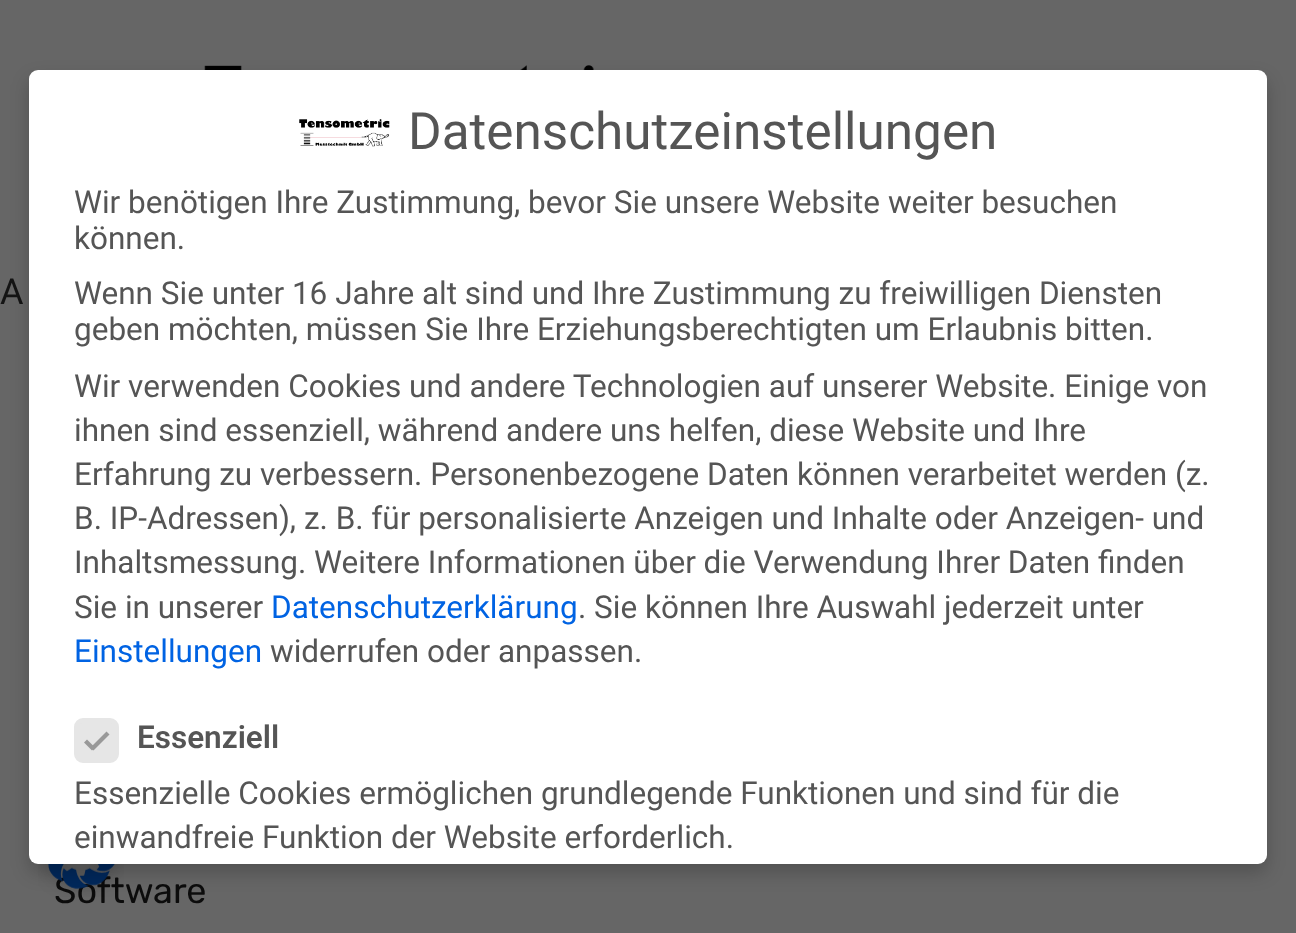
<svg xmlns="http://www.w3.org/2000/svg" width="1296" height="933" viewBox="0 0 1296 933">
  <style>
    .t1 { font: 36px Roboto; fill: #141414; }
    .t2 { font: 36px Rubik; fill: #0c0c0c; }
    .t3 { font: 51.25px Roboto; fill: #555; }
    .t4 { font: 31.5px Roboto; fill: #555; }
    .t5 { font: 31.5px Roboto; fill: #0063e3; }
    .t6 { font: 600 31.5px Roboto; fill: #555; }
  </style>
  <rect width="100%" height="100%" fill="#666"/>
  <image x="204" y="65" width="390" height="5" href="images/1.png"/>
  <text x="0" y="304" class="t1">A</text>
  <image x="0" y="351" width="1296" height="582" href="images/4.png"/>
  <text x="54" y="903" class="t2">Software</text>
  <image x="38" y="864" width="86" height="33" href="images/3.png"/>
  <rect x="29" y="79" width="1238" height="794" rx="9" fill="#00000033" filter="blur(9px)"/>
  <rect x="29" y="70" width="1238" height="794" rx="9" fill="#fff"/>
  <image x="299" y="119" width="91" height="28" href="images/2.png"/>
  <text x="408" y="149" class="t3">Datenschutzeinstellungen</text>
  <text x="74" y="213" class="t4">Wir benötigen Ihre Zustimmung, bevor Sie unsere Website weiter besuchen</text>
  <text x="74" y="249" class="t4">können.</text>
  <text x="74" y="304" class="t4">Wenn Sie unter 16 Jahre alt sind und Ihre Zustimmung zu freiwilligen Diensten</text>
  <text x="74" y="340" class="t4">geben möchten, müssen Sie Ihre Erziehungsberechtigten um Erlaubnis bitten.</text>
  <text x="74" y="397" class="t4">Wir verwenden Cookies und andere Technologien auf unserer Website. Einige von</text>
  <text x="74" y="441" class="t4">ihnen sind essenziell, während andere uns helfen, diese Website und Ihre</text>
  <text x="74" y="485" class="t4">Erfahrung zu verbessern. Personenbezogene Daten können verarbeitet werden (z.</text>
  <text x="74" y="529" class="t4">B. IP-Adressen), z. B. für personalisierte Anzeigen und Inhalte oder Anzeigen- und</text>
  <text x="74" y="573" class="t4">Inhaltsmessung. Weitere Informationen über die Verwendung Ihrer Daten finden</text>
  <text x="74" y="618" class="t4">Sie in unserer</text>
  <text x="271" y="618" class="t5">Datenschutzerklärung</text>
  <text x="578" y="618" class="t4">. Sie können Ihre Auswahl jederzeit unter</text>
  <text x="74" y="662" class="t5">Einstellungen</text>
  <text x="270" y="662" class="t4">widerrufen oder anpassen.</text>
  <rect x="76.5" y="720.5" width="40" height="40" rx="6.5" fill="#e6e6e6" stroke="#e6e6e6" stroke-width="5"/>
  <path d="M106.5 731.5L109.5 734.5L93.5 750.5L90.5 747.5Z" fill="#999"/>
  <path d="M87 739.5L95 747.5L92 750.5L84 742.5Z" fill="#999"/>
  <text x="137" y="748" class="t6">Essenziell</text>
  <text x="74" y="804" class="t4">Essenzielle Cookies ermöglichen grundlegende Funktionen und sind für die</text>
  <text x="74" y="848" class="t4">einwandfreie Funktion der Website erforderlich.</text>
</svg>
